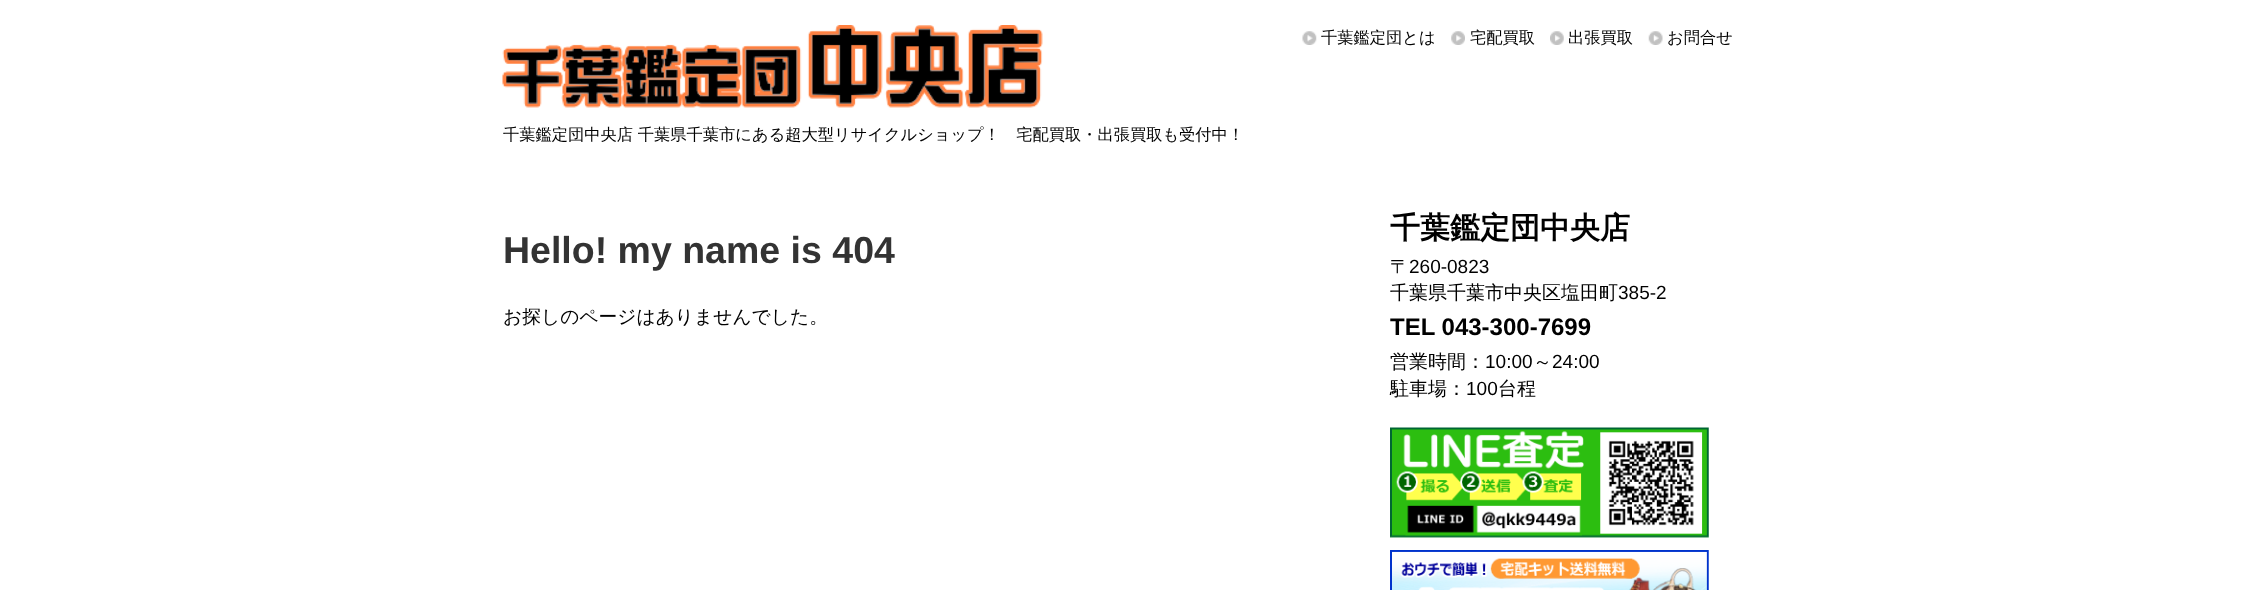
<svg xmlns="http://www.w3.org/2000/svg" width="2254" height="590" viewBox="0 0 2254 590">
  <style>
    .t1 { font: 500 16.25px WenQuanYi Zen Hei; fill: #000; }
    .t2 { font: bold 37.5px Liberation Sans; fill: #333; }
    .t3 { font: 500 18.75px WenQuanYi Zen Hei; fill: #000; }
    .t4 { font: bold 30px WenQuanYi Zen Hei; fill: #000; }
    .t5 { font: 500 19px WenQuanYi Zen Hei; fill: #000; }
    .t6 { font: 19px Liberation Sans; fill: #000; }
    .t7 { font: bold 24px Liberation Sans; fill: #000; }
  </style>
  <rect width="100%" height="100%" fill="#fff"/>
  <image x="1302" y="31" width="15" height="14" href="images/1.png"/>
  <text x="1321" y="43" class="t1">千葉鑑定団とは</text>
  <image x="1451" y="31" width="14" height="14" href="images/2.png"/>
  <text x="1470" y="43" class="t1">宅配買取</text>
  <image x="1550" y="31" width="14" height="14" href="images/3.png"/>
  <text x="1568" y="43" class="t1">出張買取</text>
  <image x="1648" y="31" width="15" height="14" href="images/4.png"/>
  <text x="1667" y="43" class="t1">お問合せ</text>
  <image x="502" y="25" width="541" height="83" href="images/5.png"/>
  <text x="503" y="140" class="t1">千葉鑑定団中央店 千葉県千葉市にある超大型リサイクルショップ！　宅配買取・出張買取も受付中！</text>
  <text x="503" y="263" class="t2">Hello! my name is 404</text>
  <text x="503" y="323" class="t3">お探しのページはありませんでした。</text>
  <text x="1390" y="238" class="t4">千葉鑑定団中央店</text>
  <text x="1390" y="273" class="t5">〒</text>
  <text x="1409" y="273" class="t6">260-0823</text>
  <text x="1390" y="299" class="t5">千葉県千葉市中央区塩田町</text>
  <text x="1618" y="299" class="t6">385-2</text>
  <text x="1390" y="335" class="t7">TEL 043-300-7699</text>
  <text x="1390" y="368" class="t5">営業時間：</text>
  <text x="1485" y="368" class="t6">10:00</text>
  <text x="1533" y="368" class="t5">～</text>
  <text x="1552" y="368" class="t6">24:00</text>
  <text x="1390" y="395" class="t5">駐車場：</text>
  <text x="1466" y="395" class="t6">100</text>
  <text x="1498" y="395" class="t5">台程</text>
  <image x="1390" y="427" width="319" height="111" href="images/6.png"/>
  <image x="1390" y="550" width="319" height="40" href="images/7.png"/>
</svg>
